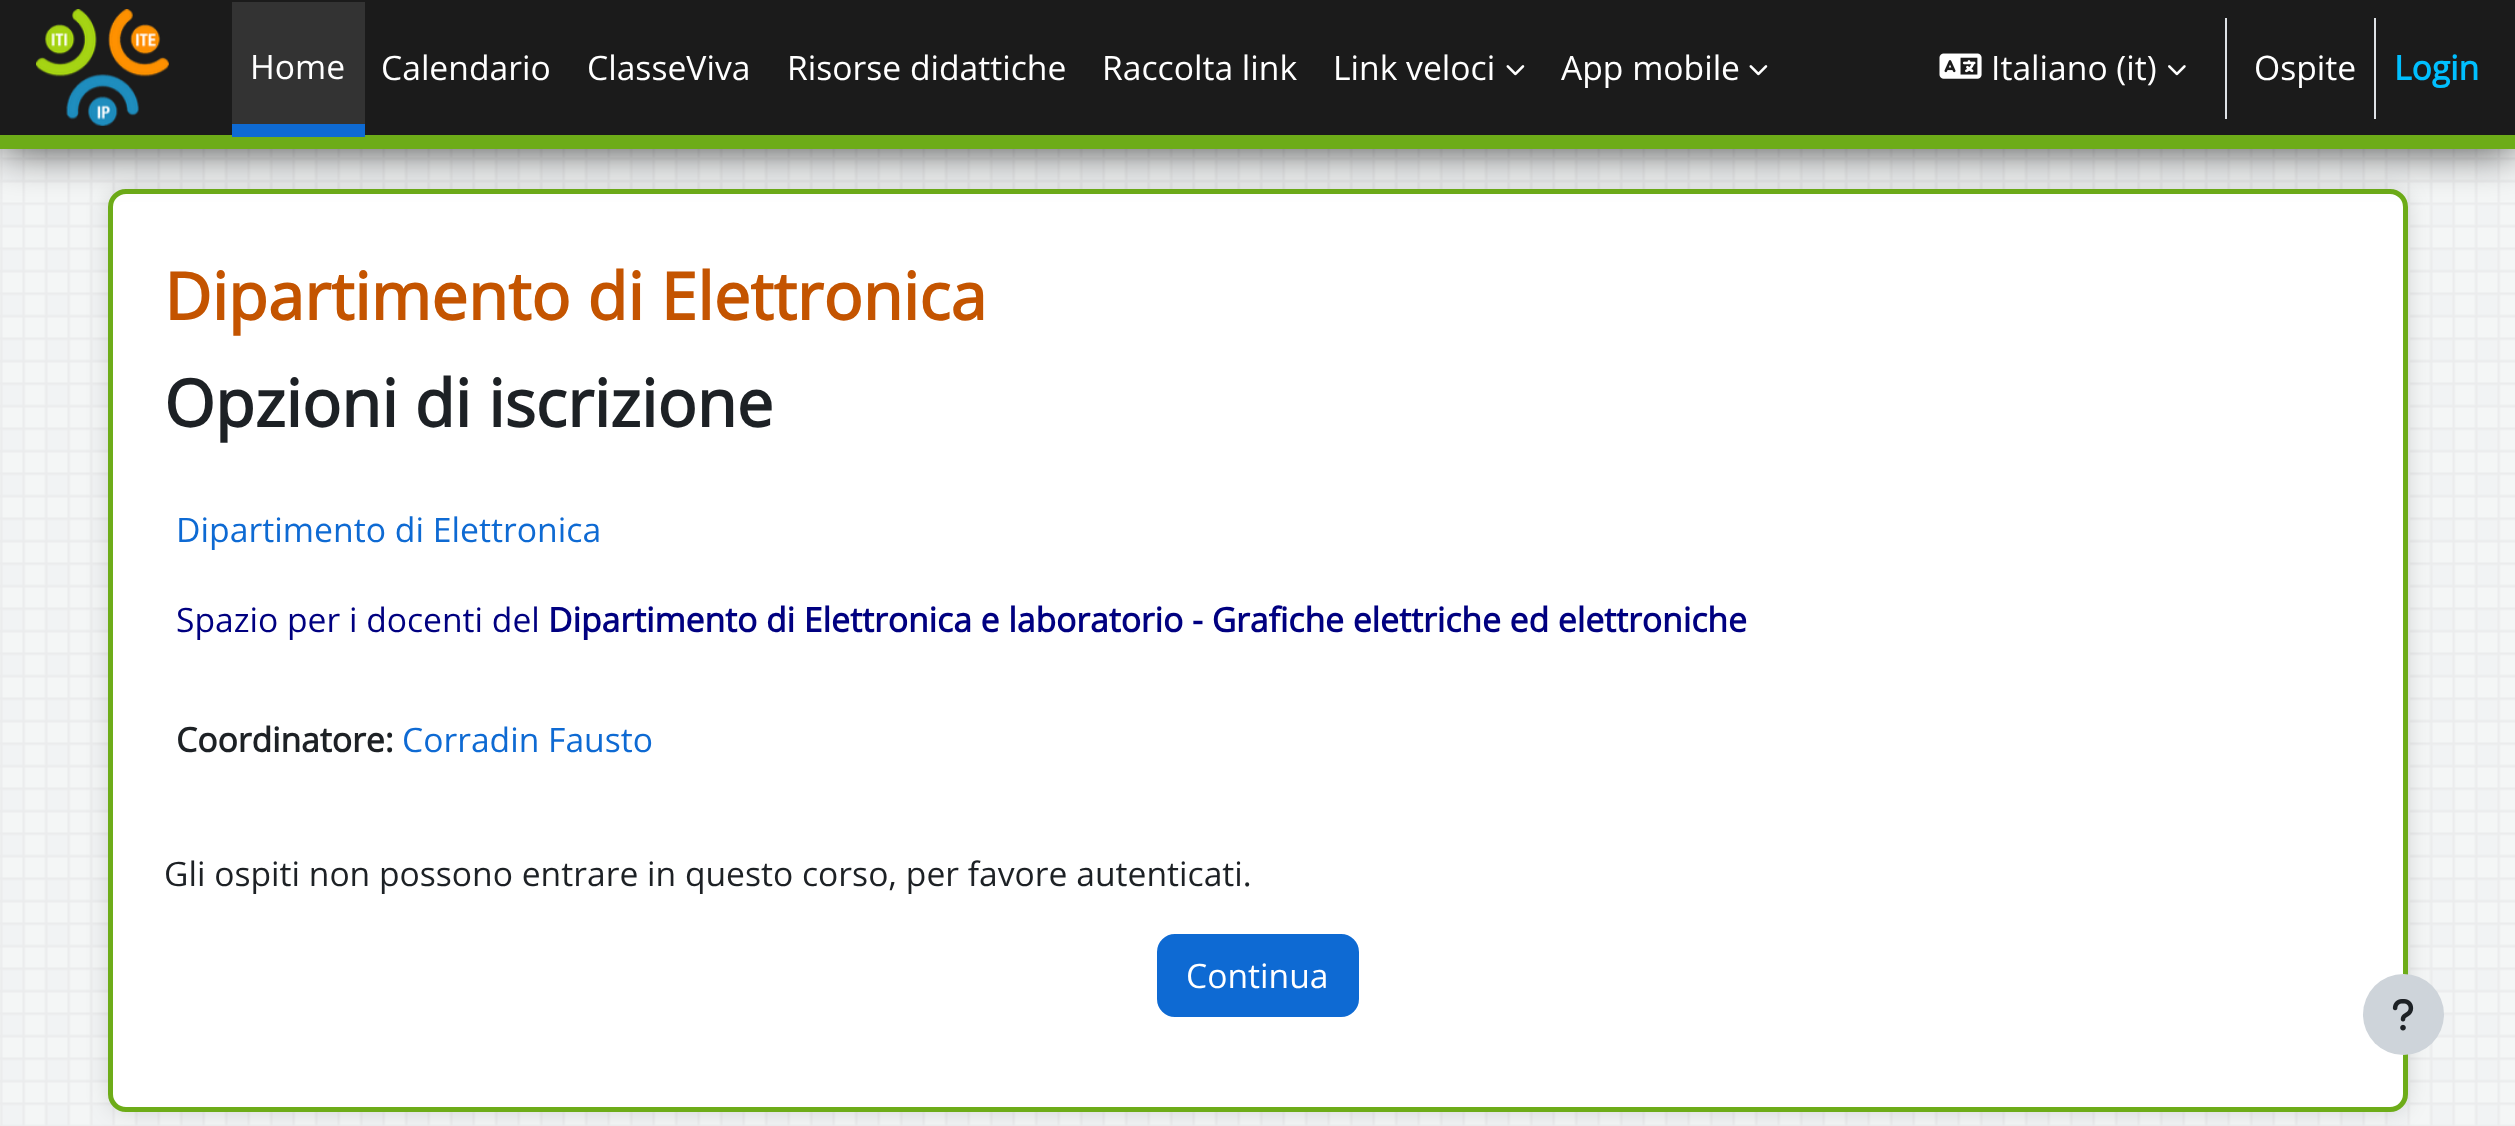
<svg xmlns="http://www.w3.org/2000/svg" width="2515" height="1126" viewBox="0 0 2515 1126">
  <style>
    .t1 { font: 33.65px Open Sans; fill: #fff; }
    .t2 { font: bold 33.65px Open Sans; fill: #00bfff; }
    .t3 { font: bold 65.3px Open Sans; fill: #c45400; }
    .t4 { font: bold 65.3px Open Sans; fill: #1d2125; }
    .t5 { font: 33.75px Open Sans; fill: #0e6ad3; }
    .t6 { font: 33.65px Open Sans; fill: #000080; }
    .t7 { font: bold 33.65px Open Sans; fill: #000080; }
    .t8 { font: bold 33.65px Open Sans; fill: #1d2125; }
    .t9 { font: 33.65px Open Sans; fill: #0e6ad3; }
    .t10 { font: 33.65px Open Sans; fill: #1d2125; }
  </style>
  <rect width="100%" height="100%" fill="#fff"/>
  <image x="0" y="149" width="2515" height="977" href="images/1.png"/>
  <rect x="108" y="189" width="2300" height="923" rx="18" fill="#0000001f" filter="blur(11px)"/>
  <rect x="110.5" y="191.5" width="2295" height="918" rx="15.5" fill="#fff" stroke="#6dac18" stroke-width="5"/>
  <rect x="0" y="0" width="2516" height="149" fill="#000000bf" filter="blur(22.5px)"/>
  <rect x="0" y="0" width="2515" height="135" fill="#1b1b1b"/>
  <rect x="0" y="135" width="2515" height="14" fill="#6dac18"/>
  <image x="36" y="9" width="133" height="117" href="images/2.png"/>
  <rect x="232" y="2" width="133" height="122" fill="#333"/>
  <rect x="232" y="124" width="133" height="13" fill="#0e6ad3"/>
  <text x="250" y="79" class="t1">Home</text>
  <text x="381" y="80" class="t1">Calendario</text>
  <text x="587" y="80" class="t1">ClasseViva</text>
  <text x="787" y="80" class="t1">Risorse didattiche</text>
  <text x="1102" y="80" class="t1">Raccolta link</text>
  <text x="1333" y="80" class="t1">Link veloci</text>
  <image x="1506" y="65" width="19" height="11" href="images/3.png"/>
  <text x="1561" y="80" class="t1">App mobile</text>
  <image x="1749" y="65" width="19" height="11" href="images/3.png"/>
  <image x="1939" y="53" width="43" height="26" href="images/4.png"/>
  <text x="1991" y="80" class="t1">Italiano (it)</text>
  <image x="2168" y="65" width="18" height="11" href="images/5.png"/>
  <rect x="2225" y="18" width="2" height="101" fill="#dee2e6"/>
  <text x="2254" y="80" class="t1">Ospite</text>
  <rect x="2374" y="18" width="2" height="101" fill="#dee2e6"/>
  <text x="2394" y="80" class="t2">Login</text>
  <text x="164" y="320" class="t3">Dipartimento di Elettronica</text>
  <text x="164" y="427" class="t4">Opzioni di iscrizione</text>
  <text x="176" y="542" class="t5">Dipartimento di Elettronica</text>
  <text x="176" y="632" class="t6">Spazio per i docenti del</text>
  <text x="548" y="632" class="t7">Dipartimento di Elettronica e laboratorio - Grafiche elettriche ed elettroniche</text>
  <text x="176" y="752" class="t8">Coordinatore:</text>
  <text x="402" y="752" class="t9">Corradin Fausto</text>
  <text x="164" y="886" class="t10">Gli ospiti non possono entrare in questo corso, per favore autenticati.</text>
  <rect x="1158" y="935" width="200" height="81" rx="17" fill="#0e6ad3" stroke="#0e6ad3" stroke-width="2"/>
  <text x="1186" y="988" class="t1">Continua</text>
  <circle cx="2403.5" cy="1014.5" r="40.5" fill="#ced4da"/>
  <image x="2392" y="999" width="22" height="32" href="images/6.png"/>
</svg>
